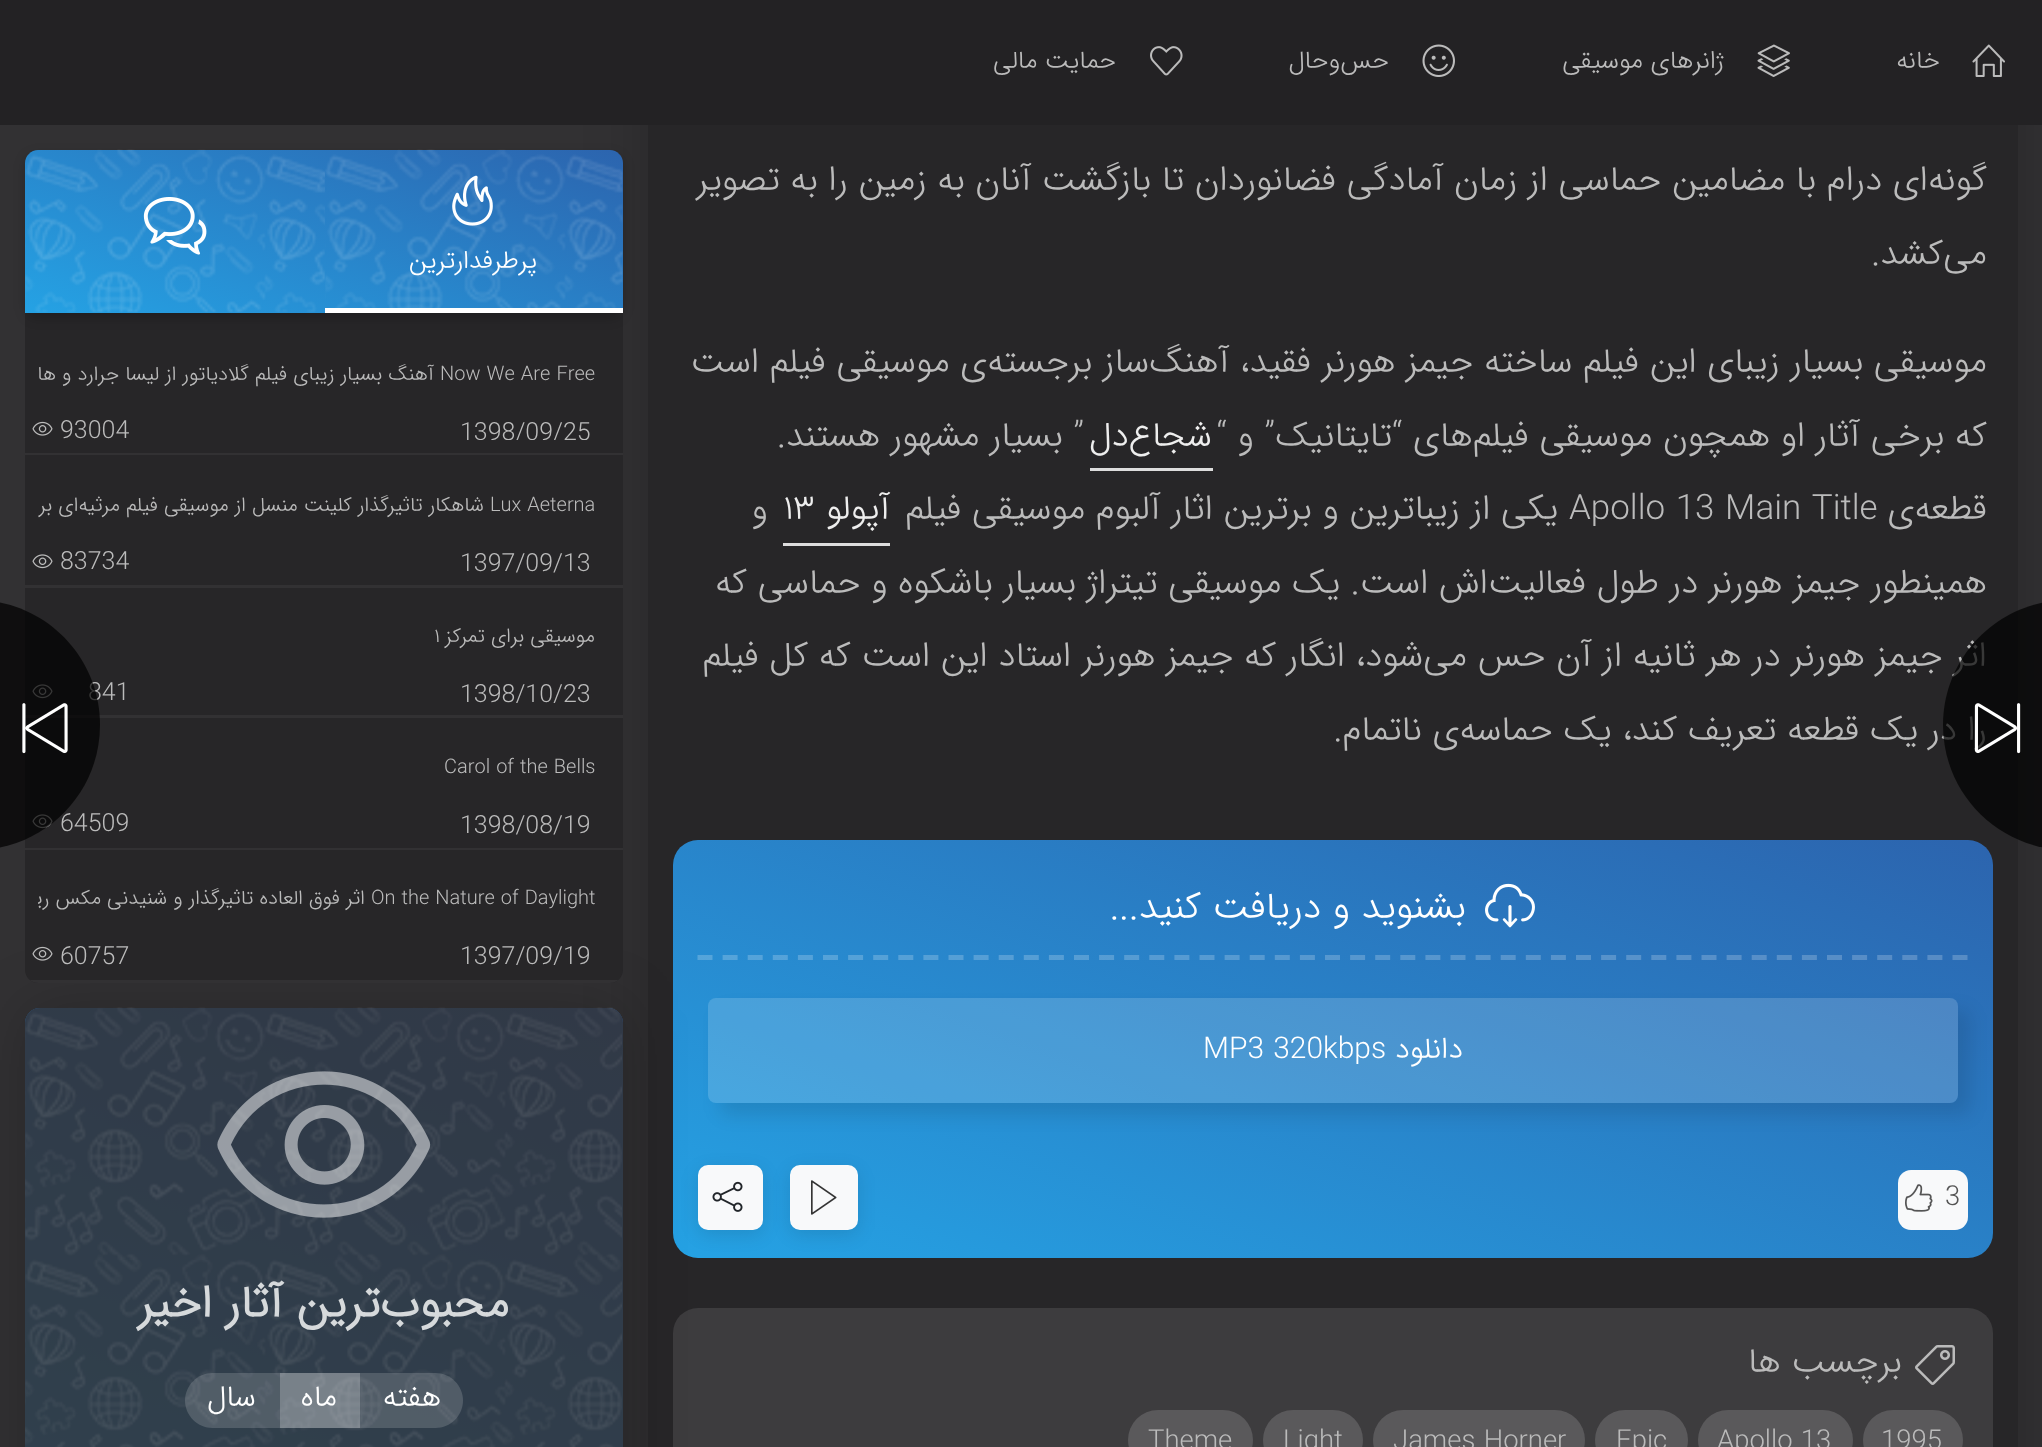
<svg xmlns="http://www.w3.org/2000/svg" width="2042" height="1447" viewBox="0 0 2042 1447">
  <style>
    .t1 { font: 300 25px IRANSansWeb; direction: rtl; fill: #bbb; }
    .t2 { font: 300 35px IRANSansWeb; direction: rtl; fill: #bbb; }
    .t3 { font: 300 35px IRANSansWeb; direction: rtl; fill: #eee; }
    .t4 { font: 300 35px IRANSansWeb; fill: #bbb; }
    .t5 { font: 300 35px IRANSansWeb; fill: #eee; }
    .t6 { font: 300 37.5px IRANSansWeb; direction: rtl; fill: #fff; }
    .t7 { font: 300 30px IRANSansWeb; direction: rtl; fill: #fff; }
    .t8 { font: 300 30px IRANSansWeb; fill: #fff; }
    .t9 { font: 300 27.5px IRANSansWeb; fill: #555; }
    .t10 { font: 300 27.5px IRANSansWeb; fill: #bbb; }
    .t11 { font: 300 25px IRANSansWeb; fill: #bbb; }
    .t12 { font: 300 25px IRANSansWeb; direction: rtl; fill: #fff; }
    .t13 { font: 300 20px IRANSansWeb; fill: #bbb; }
    .t14 { font: 300 20px IRANSansWeb; direction: rtl; fill: #bbb; }
    .t15 { font: bold 45px IRANSansWeb; direction: rtl; fill: #d6d9db; }
  </style>
  <defs>
    <linearGradient id="g1" gradientUnits="userSpaceOnUse" x1="1477" y1="652" x2="1188" y2="1445"><stop offset="0" stop-color="#2c64ae"/><stop offset="1" stop-color="#25a2e4"/></linearGradient>
    <clipPath id="clip1"><path d="M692 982H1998V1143H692ZM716 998H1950C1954.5 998 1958 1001.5 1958 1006V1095C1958 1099.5 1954.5 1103 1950 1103H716C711.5 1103 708 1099.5 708 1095V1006C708 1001.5 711.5 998 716 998Z" clip-rule="evenodd"/></clipPath>
    <linearGradient id="g2" gradientUnits="userSpaceOnUse" x1="385" y1="63" x2="263" y2="399"><stop offset="0" stop-color="#2c64ae"/><stop offset="1" stop-color="#25a2e4"/></linearGradient>
    <clipPath id="clip2"><rect x="38" y="338" width="572" height="102"/></clipPath>
    <clipPath id="clip3"><rect x="38" y="468" width="572" height="105"/></clipPath>
    <clipPath id="clip4"><rect x="38" y="600" width="572" height="103"/></clipPath>
    <clipPath id="clip5"><path d="M25 313H623V970C623 977 617 983 610 983H38C31 983 25 977 25 970Z"/></clipPath>
    <clipPath id="clip6"><rect x="38" y="863" width="572" height="102"/></clipPath>
    <linearGradient id="g3" gradientUnits="userSpaceOnUse" x1="484" y1="957" x2="163" y2="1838"><stop offset="0" stop-color="#2c64ae"/><stop offset="1" stop-color="#25a2e4"/></linearGradient>
  </defs>
  <rect width="100%" height="100%" fill="#323133"/>
  <rect x="648" y="-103" width="1370" height="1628" rx="10" fill="#00000033" filter="blur(31px)"/>
  <rect x="0" y="0" width="2042" height="125" fill="#232224"/>
  <image x="1972" y="44" width="33" height="33" href="images/1.png"/>
  <text x="1940" y="68" class="t1">خانه</text>
  <image x="1757" y="44" width="33" height="33" href="images/2.png"/>
  <text x="1724" y="68" class="t1">ژانرهای موسیقی</text>
  <image x="1422" y="44" width="33" height="33" href="images/3.png"/>
  <text x="1389" y="68" class="t1">حس‌و‌حال</text>
  <image x="1150" y="46" width="33" height="30" href="images/4.png"/>
  <text x="1116" y="68" class="t1">حمایت مالی</text>
  <rect x="648" y="125" width="1370" height="1322" fill="#272628"/>
  <text x="1987" y="593" class="t2">همینطور جیمز هورنر در طول فعالیت‌اش است. یک موسیقی تیتراژ بسیار باشکوه و حماسی که</text>
  <text x="1987" y="666" class="t2">اثر جیمز هورنر در هر ثانیه از آن حس می‌شود، انگار که جیمز هورنر استاد این است که کل فیلم</text>
  <text x="1987" y="740" class="t2">را در یک قطعه تعریف کند، یک حماسه‌ی ناتمام.</text>
  <rect x="673" y="840" width="1320" height="418" rx="25" fill="url(#g1)"/>
  <path d="M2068 600H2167V850H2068C1999 850 1943 794 1943 725C1943 656 1999 600 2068 600Z" fill="#000000b3"/>
  <image x="1974" y="703" width="47" height="51" href="images/5.png"/>
  <text x="1987" y="190" class="t2">گونه‌ای درام با مضامین حماسی از زمان آمادگی فضانوردان تا بازگشت آنان به زمین را به تصویر</text>
  <text x="1987" y="264" class="t2">می‌کشد.</text>
  <text x="1987" y="372" class="t2">موسیقی بسیار زیبای این فیلم ساخته جیمز هورنر فقید، آهنگ‌ساز برجسته‌ی موسیقی فیلم است</text>
  <text x="1987" y="446" class="t2">که برخی آثار او همچون موسیقی فیلم‌های “تایتانیک” و “</text>
  <text x="1212" y="446" class="t3">شجاع‌دل</text>
  <rect x="1090" y="468" width="123" height="3" fill="#ddd"/>
  <text x="1084" y="446" class="t2">” بسیار مشهور هستند.</text>
  <text x="1987" y="519" class="t2">قطعه‌ی</text>
  <text x="1569" y="519" class="t4">Apollo 13 Main Title</text>
  <text x="1558" y="519" class="t2">یکی از زیباترین و برترین اثار آلبوم موسیقی فیلم</text>
  <text x="890" y="519" class="t3">آپولو</text>
  <rect x="783" y="543" width="107" height="3" fill="#ddd"/>
  <text x="783" y="519" class="t5">۱۳</text>
  <text x="768" y="519" class="t2">و</text>
  <path d="M697.5 957.5H1967.5" fill="none" stroke="#ffffff36" stroke-width="5" stroke-dasharray="15 10.1"/>
  <image x="1485" y="883" width="50" height="45" href="images/6.png"/>
  <text x="1466" y="918" class="t6">بشنوید و دریافت کنید...</text>
  <g clip-path="url(#clip1)">
    <rect x="720" y="1010" width="1250" height="105" rx="8" fill="#0000001a" filter="blur(9px)"/>
  </g>
  <rect x="708" y="998" width="1250" height="105" rx="8" fill="#ffffff29"/>
  <text x="1463" y="1058" class="t7">دانلود</text>
  <text x="1203" y="1058" class="t8">MP3 320kbps</text>
  <rect x="1898" y="1170" width="70" height="60" rx="13" fill="#f8f9fa"/>
  <text x="1945" y="1205" class="t9">3</text>
  <image x="1905" y="1184" width="28" height="28" href="images/7.png"/>
  <rect x="790" y="1170" width="68" height="65" rx="10" fill="#0000001a" filter="blur(9px)"/>
  <rect x="791.5" y="1166.5" width="65" height="62" rx="8.5" fill="#f8f9fa" stroke="#f8f9fa" stroke-width="3"/>
  <image x="811" y="1180" width="26" height="35" href="images/8.png"/>
  <rect x="698" y="1170" width="65" height="65" rx="10" fill="#0000001a" filter="blur(9px)"/>
  <rect x="698" y="1165" width="65" height="65" rx="10" fill="#f8f9fa"/>
  <image x="712" y="1181" width="31" height="31" href="images/9.png"/>
  <rect x="673" y="1308" width="1320" height="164" rx="25" fill="#3d3c3e"/>
  <image x="1915" y="1345" width="40" height="40" href="images/10.png"/>
  <text x="1902" y="1372" class="t2">برچسب ها</text>
  <rect x="1863" y="1410" width="100" height="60" rx="30" fill="#5a595b"/>
  <text x="1881" y="1449" class="t10">1995</text>
  <rect x="1698" y="1410" width="155" height="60" rx="30" fill="#5a595b"/>
  <text x="1717" y="1449" class="t10">Apollo 13</text>
  <rect x="1595" y="1410" width="93" height="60" rx="30" fill="#5a595b"/>
  <text x="1616" y="1449" class="t10">Epic</text>
  <rect x="1373" y="1410" width="212" height="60" rx="30" fill="#5a595b"/>
  <text x="1393" y="1449" class="t10">James Horner</text>
  <rect x="1263" y="1410" width="100" height="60" rx="30" fill="#5a595b"/>
  <text x="1283" y="1449" class="t10">Light</text>
  <rect x="1128" y="1410" width="125" height="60" rx="30" fill="#5a595b"/>
  <text x="1148" y="1449" class="t10">Theme</text>
  <rect x="25" y="1008" width="598" height="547" rx="15" fill="#00000033" filter="blur(31px)"/>
  <path d="M25 313H623V970C623 977 617 983 610 983H38C31 983 25 977 25 970Z" fill="#272628"/>
  <rect x="25" y="715" width="598" height="3" fill="#323133"/>
  <text x="88" y="700" class="t11">841</text>
  <image x="32" y="684" width="21" height="15" href="images/17.png"/>
  <rect x="25" y="848" width="598" height="2" fill="#323133"/>
  <text x="60" y="831" class="t11">64509</text>
  <image x="32" y="814" width="21" height="15" href="images/17.png"/>
  <path d="M-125 600H-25C44 600 100 656 100 725C100 794 44 850-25 850H-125Z" fill="#000000b3"/>
  <image x="22" y="703" width="46" height="51" href="images/11.png"/>
  <rect x="25" y="155" width="598" height="163" rx="13" fill="#00000033" filter="blur(6px)"/>
  <path d="M38 150H610C617 150 623 156 623 163V313H25V163C25 156 31 150 38 150Z" fill="url(#g2)"/>
  <image x="325" y="149" width="298" height="159" href="images/12.png"/>
  <rect x="325" y="308" width="298" height="5" fill="#fff"/>
  <image x="452" y="175" width="41" height="51" href="images/13.png"/>
  <text x="537" y="268" class="t12">پرطرفدارترین‌</text>
  <image x="25" y="149" width="300" height="164" href="images/14.png"/>
  <image x="143" y="197" width="64" height="58" href="images/15.png"/>
  <rect x="25" y="453" width="598" height="2" fill="#323133"/>
  <text x="440" y="380" class="t13">Now We Are Free</text>
  <g clip-path="url(#clip2)">
    <text x="434" y="380" class="t14">آهنگ بسیار زیبای فیلم گلادیاتور از لیسا جرارد و هانس زیمر</text>
    <text x="460" y="440" class="t11">1398/09/25</text>
  </g>
  <text x="60" y="438" class="t11">93004</text>
  <image x="32" y="421" width="21" height="15" href="images/16.png"/>
  <rect x="25" y="585" width="598" height="3" fill="#323133"/>
  <text x="490" y="511" class="t13">Lux Aeterna</text>
  <g clip-path="url(#clip3)">
    <text x="484" y="511" class="t14">شاهکار تاثیرگذار کلینت منسل از موسیقی فیلم مرثیه‌ای بر یک رؤیا</text>
  </g>
  <text x="460" y="571" class="t11">1397/09/13</text>
  <text x="60" y="569" class="t11">83734</text>
  <image x="32" y="554" width="21" height="15" href="images/17.png"/>
  <text x="595" y="642" class="t14">موسیقی برای تمرکز</text>
  <text x="434" y="642" class="t13">۱</text>
  <g clip-path="url(#clip4)">
    <text x="460" y="702" class="t11">1398/10/23</text>
  </g>
  <text x="444" y="773" class="t13">Carol of the Bells</text>
  <text x="460" y="833" class="t11">1398/08/19</text>
  <g clip-path="url(#clip5)">
    <rect x="25" y="980" width="598" height="3" fill="#323133"/>
  </g>
  <text x="371" y="904" class="t13">On the Nature of Daylight</text>
  <g clip-path="url(#clip6)">
    <text x="365" y="904" class="t14">اثر فوق العاده تاثیرگذار و شنیدنی مکس ریشتر</text>
    <text x="460" y="964" class="t11">1397/09/19</text>
  </g>
  <text x="60" y="964" class="t11">60757</text>
  <image x="32" y="946" width="21" height="15" href="images/16.png"/>
  <rect x="25" y="1008" width="598" height="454" rx="15" fill="url(#g3)"/>
  <rect x="25" y="1008" width="598" height="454" rx="15" fill="#333234bf"/>
  <image x="25" y="1007" width="597" height="440" href="images/18.png"/>
  <rect x="25" y="1008" width="598" height="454" rx="15" fill="#33323461"/>
  <image x="217" y="1071" width="214" height="147" href="images/19.png"/>
  <text x="509" y="1317" class="t15">محبوب‌ترین آثار اخیر</text>
  <path d="M360 1373H435.5C450.5 1373 463 1385.5 463 1400.5C463 1415.5 450.5 1428 435.5 1428H360Z" fill="#ffffff29"/>
  <text x="441" y="1406" class="t7">هفته</text>
  <rect x="280" y="1373" width="80" height="55" fill="#ffffff59"/>
  <text x="337" y="1406" class="t7">ماه</text>
  <path d="M212.5 1373H280V1428H212.5C197.5 1428 185 1415.5 185 1400.5C185 1385.5 197.5 1373 212.5 1373Z" fill="#ffffff29"/>
  <text x="256" y="1406" class="t7">سال</text>
</svg>
